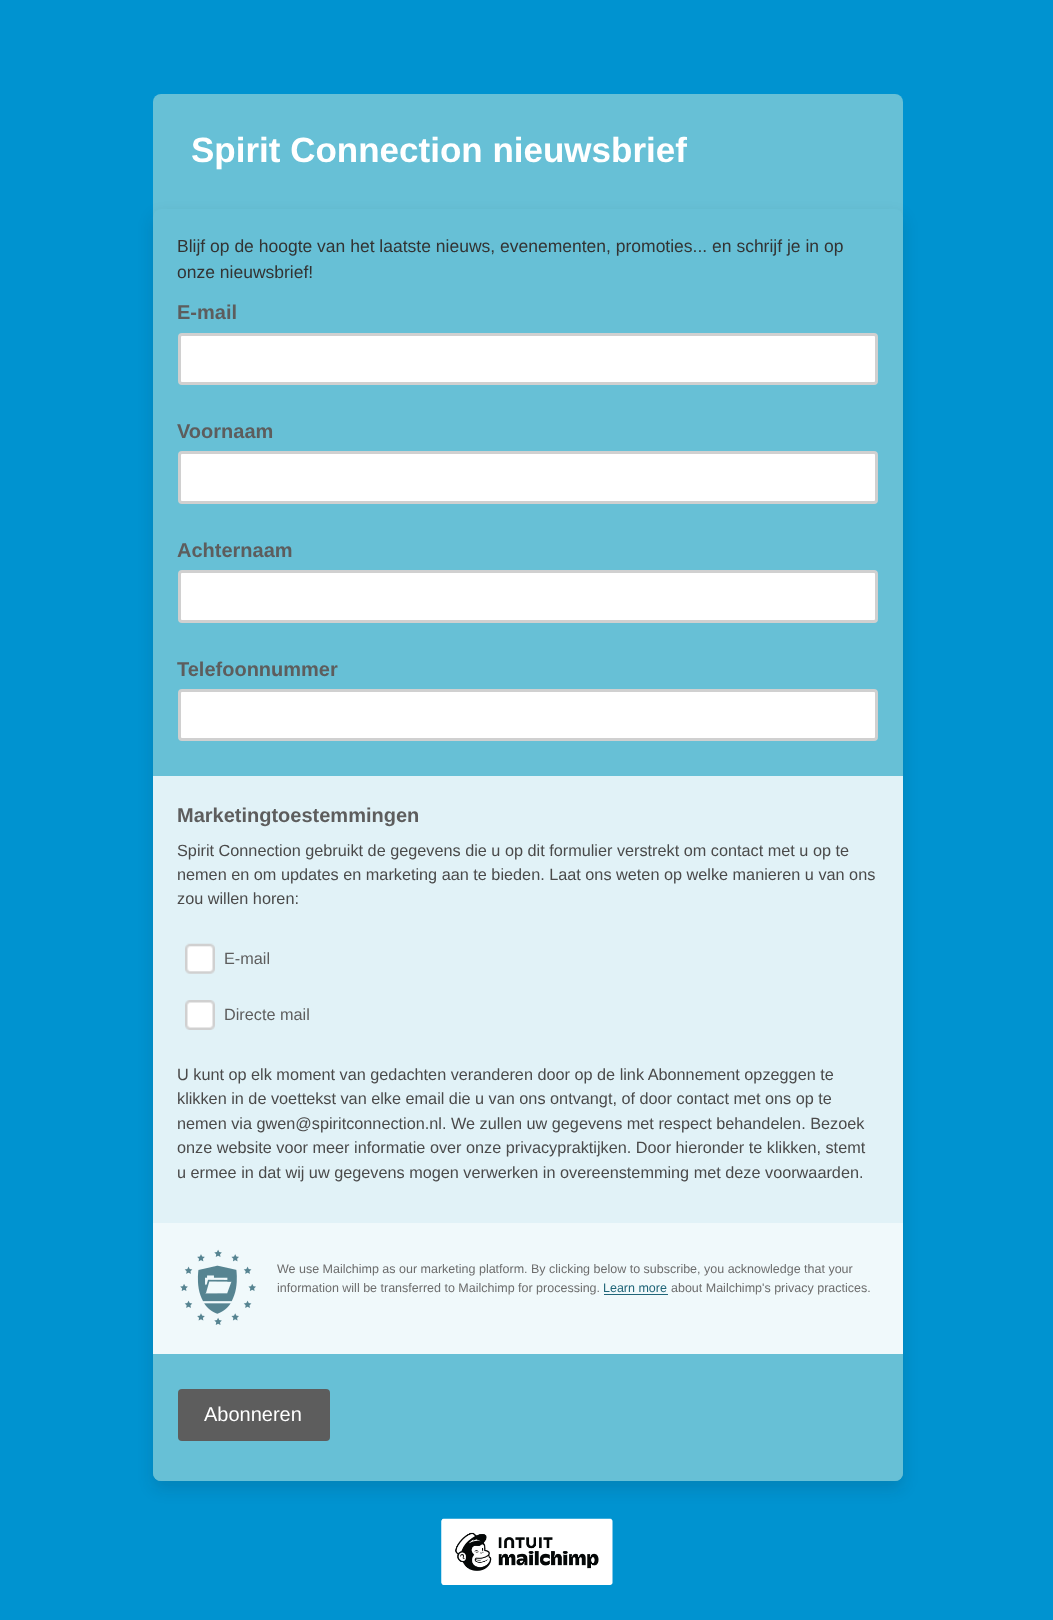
<svg xmlns="http://www.w3.org/2000/svg" width="1053" height="1620" viewBox="0 0 1053 1620">
  <style>
    .t1 { font: bold 35px Liberation Sans; fill: #fff; }
    .t2 { font: 17.5px Liberation Sans; fill: #333; }
    .t3 { font: bold 20px Liberation Sans; fill: #5d5d5d; }
    .t4 { font: 16.25px Liberation Sans; fill: #4a4a4a; }
    .t5 { font: 16.25px Liberation Sans; fill: #5d5d5d; }
    .t6 { font: 12.5px Liberation Sans; fill: #6d6d6d; }
    .t7 { font: 12.5px Liberation Sans; fill: #206578; }
    .t8 { font: 20px Liberation Sans; fill: #fff; }
  </style>
  <rect width="100%" height="100%" fill="#0093d0"/>
  <rect x="153" y="94" width="750" height="1387" rx="8" fill="#67c0d6"/>
  <text x="191" y="162" class="t1">Spirit Connection nieuwsbrief</text>
  <rect x="153" y="216" width="750" height="1273" rx="8" fill="#0d12161f" filter="blur(7.5px)"/>
  <rect x="153" y="209" width="750" height="1272" rx="8" fill="#67c0d6"/>
  <text x="177" y="252" class="t2">Blijf op de hoogte van het laatste nieuws, evenementen, promoties... en schrijf je in op</text>
  <text x="177" y="278" class="t2">onze nieuwsbrief!</text>
  <text x="177" y="319" class="t3">E-mail</text>
  <rect x="179.5" y="334.5" width="697" height="49" rx="2.5" fill="#fff" stroke="#d0d0d0" stroke-width="3"/>
  <text x="177" y="438" class="t3">Voornaam</text>
  <rect x="179.5" y="452.5" width="697" height="50" rx="2.5" fill="#fff" stroke="#d0d0d0" stroke-width="3"/>
  <text x="177" y="557" class="t3">Achternaam</text>
  <rect x="179.5" y="571.5" width="697" height="50" rx="2.5" fill="#fff" stroke="#d0d0d0" stroke-width="3"/>
  <text x="177" y="676" class="t3">Telefoonnummer</text>
  <rect x="179.5" y="690.5" width="697" height="49" rx="2.5" fill="#fff" stroke="#d0d0d0" stroke-width="3"/>
  <rect x="153" y="776" width="750" height="447" fill="#e1f2f7"/>
  <text x="177" y="822" class="t3">Marketingtoestemmingen</text>
  <text x="177" y="856" class="t4">Spirit Connection gebruikt de gegevens die u op dit formulier verstrekt om contact met u op te</text>
  <text x="177" y="880" class="t4">nemen en om updates en marketing aan te bieden. Laat ons weten op welke manieren u van ons</text>
  <text x="177" y="904" class="t4">zou willen horen:</text>
  <image x="185" y="943" width="30" height="31" href="images/1.png"/>
  <text x="224" y="964" class="t5">E-mail</text>
  <image x="185" y="1000" width="30" height="30" href="images/2.png"/>
  <text x="224" y="1020" class="t5">Directe mail</text>
  <text x="177" y="1080" class="t4">U kunt op elk moment van gedachten veranderen door op de link Abonnement opzeggen te</text>
  <text x="177" y="1104" class="t4">klikken in de voettekst van elke email die u van ons ontvangt, of door contact met ons op te</text>
  <text x="177" y="1129" class="t4">nemen via gwen@spiritconnection.nl. We zullen uw gegevens met respect behandelen. Bezoek</text>
  <text x="177" y="1153" class="t4">onze website voor meer informatie over onze privacypraktijken. Door hieronder te klikken, stemt</text>
  <text x="177" y="1178" class="t4">u ermee in dat wij uw gegevens mogen verwerken in overeenstemming met deze voorwaarden.</text>
  <rect x="153" y="1223" width="750" height="131" fill="#f0f9fb"/>
  <image x="180" y="1249" width="76" height="76" href="images/3.png"/>
  <text x="277" y="1273" class="t6">We use Mailchimp as our marketing platform. By clicking below to subscribe, you acknowledge that your</text>
  <text x="277" y="1292" class="t6">information will be transferred to Mailchimp for processing.</text>
  <text x="603" y="1292" class="t7">Learn more</text>
  <rect x="604" y="1294" width="64" height="1" fill="#206578"/>
  <text x="671" y="1292" class="t6">about Mailchimp's privacy practices.</text>
  <rect x="178" y="1389" width="152" height="52" rx="4" fill="#5d5d5d"/>
  <text x="204" y="1421" class="t8">Abonneren</text>
  <image x="441" y="1518" width="172" height="67" href="images/4.png"/>
</svg>
